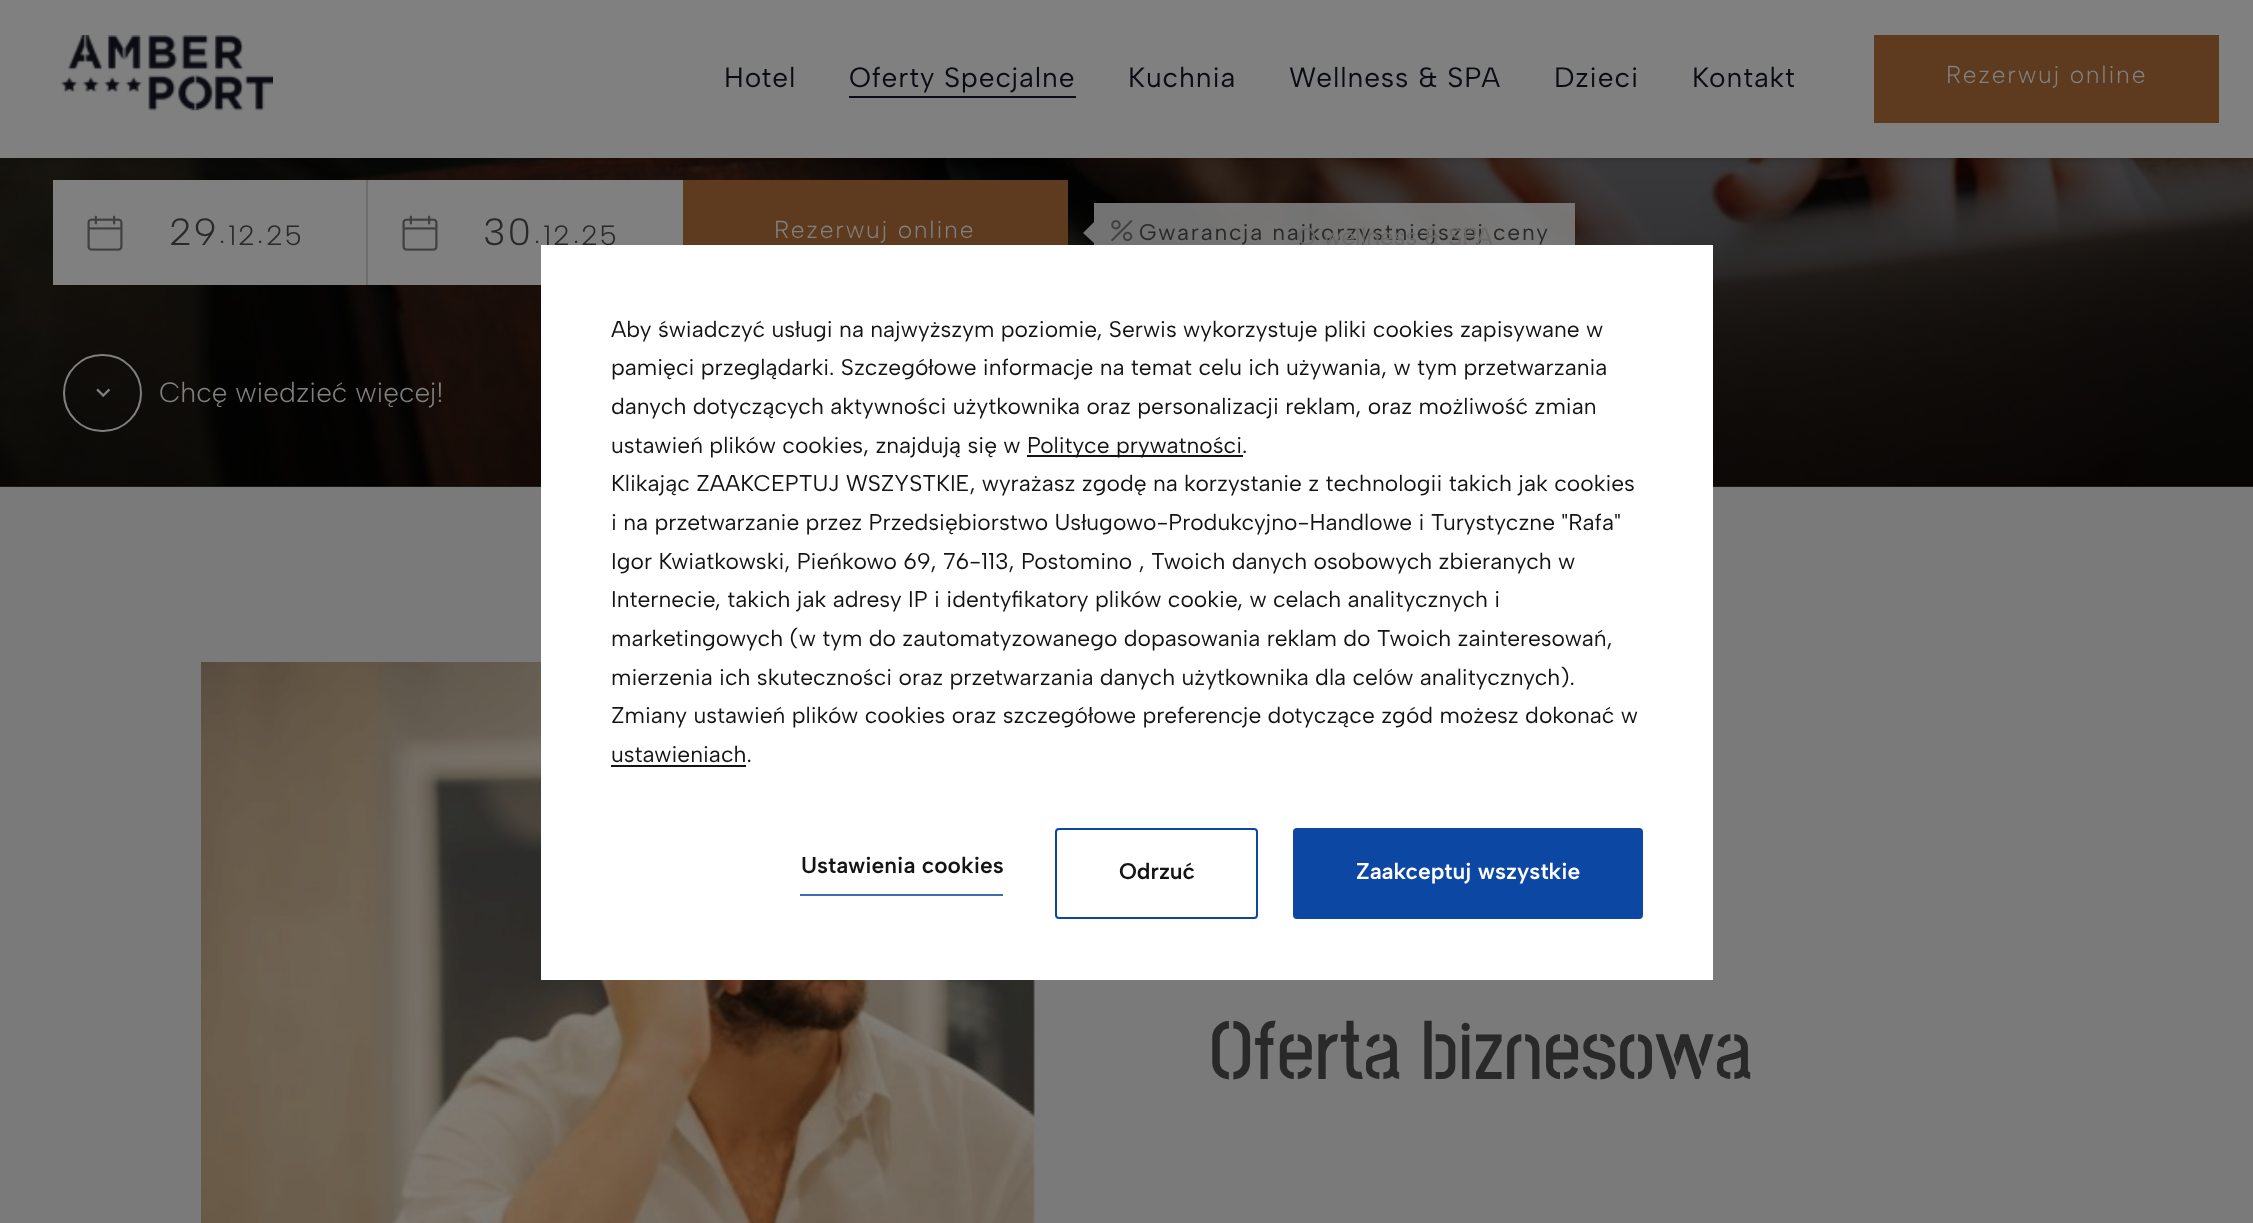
<svg xmlns="http://www.w3.org/2000/svg" width="2253" height="1223" viewBox="0 0 2253 1223">
  <style>
    .t1 { font: 28px Albert Sans; letter-spacing: 0.9px; fill: #0a0c13; }
    .t2 { font: 22.75px Albert Sans; letter-spacing: 1.75px; fill: #292929; }
    .t3 { font: 24.5px Albert Sans; fill: #696867; }
    .t4 { font: 300 24.5px Albert Sans; letter-spacing: 1.75px; fill: #808080; }
    .t5 { font: 300 38px Albert Sans; letter-spacing: 1.75px; fill: #292929; }
    .t6 { font: 300 28px Albert Sans; letter-spacing: 1.75px; fill: #292929; }
    .t7 { font: 300 28px Albert Sans; fill: #808080; }
    .t8 { font: 22.75px Albert Sans; fill: #141416; }
    .t9 { font: 600 22.75px Albert Sans; fill: #141416; }
    .t10 { font: 600 22.75px Albert Sans; fill: #fff; }
    .t11 { font: 200 82.25px Stick No Bills; fill: #292929; }
  </style>
  <defs>
    <linearGradient id="g1" gradientUnits="userSpaceOnUse" x1="1127" y1="-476" x2="1127" y2="487"><stop offset="0" stop-color="#000" stop-opacity="0"/><stop offset="1" stop-color="#000" stop-opacity="0.67"/></linearGradient>
  </defs>
  <rect width="100%" height="100%" fill="#7a7a7a"/>
  <image x="0" y="158" width="2253" height="329" href="images/2.png"/>
  <rect x="0" y="158" width="2253" height="329" fill="url(#g1)"/>
  <rect x="0" y="0" width="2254" height="158" fill="#00000033" filter="blur(4.5px)"/>
  <rect x="0" y="0" width="2253" height="158" fill="#808080"/>
  <image x="61" y="35" width="212" height="76" href="images/1.png"/>
  <text x="724" y="87" class="t1">Hotel</text>
  <text x="849" y="87" class="t1">Oferty Specjalne</text>
  <rect x="849" y="96" width="227" height="2" fill="#0a0c13"/>
  <text x="1128" y="87" class="t1">Kuchnia</text>
  <text x="1289" y="87" class="t1">Wellness &amp; SPA</text>
  <rect x="1094" y="203" width="481" height="42" fill="#808080e6"/>
  <text x="1139" y="240" class="t2">Gwarancja najkorzystniejszej ceny</text>
  <text x="1297" y="245" class="t3">O wellness &amp; SPA</text>
  <text x="1554" y="87" class="t1">Dzieci</text>
  <text x="1692" y="87" class="t1">Kontakt</text>
  <rect x="1874" y="35" width="345" height="88" fill="#5e3a1e"/>
  <text x="1946" y="83" class="t4">Rezerwuj online</text>
  <rect x="53" y="180" width="630" height="105" fill="#808080"/>
  <image x="87" y="215" width="36" height="36" href="images/3.png"/>
  <text x="169" y="245" class="t5">29</text>
  <text x="219" y="243" class="t6">.</text>
  <text x="228" y="245" class="t6">12</text>
  <text x="257" y="243" class="t6">.</text>
  <text x="266" y="245" class="t6">25</text>
  <rect x="366" y="180" width="2" height="105" fill="#6c6c6c"/>
  <image x="402" y="215" width="36" height="36" href="images/3.png"/>
  <text x="483" y="245" class="t5">30</text>
  <text x="534" y="243" class="t6">.</text>
  <text x="543" y="245" class="t6">12</text>
  <text x="573" y="243" class="t6">.</text>
  <text x="581" y="245" class="t6">25</text>
  <rect x="683" y="180" width="385" height="65" fill="#5e3a1e"/>
  <text x="774" y="238" class="t4">Rezerwuj online</text>
  <path d="M1094 222V243L1083 233Z" fill="#808080e6"/>
  <image x="1111" y="220" width="22" height="22" href="images/4.png"/>
  <rect x="64" y="355" width="77" height="76" rx="38" fill="none" stroke="#808080" stroke-width="2"/>
  <image x="96" y="388" width="15" height="10" href="images/5.png"/>
  <text x="159" y="402" class="t7">Chcę wiedzieć więcej!</text>
  <image x="201" y="662" width="834" height="561" href="images/6.png"/>
  <rect x="541" y="245" width="1172" height="735" fill="#fff"/>
  <text x="611" y="337" class="t8">Aby świadczyć usługi na najwyższym poziomie, Serwis wykorzystuje pliki cookies zapisywane w</text>
  <text x="611" y="375" class="t8">pamięci przeglądarki. Szczegółowe informacje na temat celu ich używania, w tym przetwarzania</text>
  <text x="611" y="414" class="t8">danych dotyczących aktywności użytkownika oraz personalizacji reklam, oraz możliwość zmian</text>
  <text x="611" y="453" class="t8">ustawień plików cookies, znajdują się w</text>
  <rect x="1027" y="455" width="216" height="2" fill="#141416"/>
  <text x="1027" y="453" class="t8">Polityce prywatności.</text>
  <text x="611" y="491" class="t8">Klikając ZAAKCEPTUJ WSZYSTKIE, wyrażasz zgodę na korzystanie z technologii takich jak cookies</text>
  <text x="611" y="530" class="t8">i na przetwarzanie przez Przedsiębiorstwo Usługowo-Produkcyjno-Handlowe i Turystyczne "Rafa"</text>
  <text x="611" y="569" class="t8">Igor Kwiatkowski, Pieńkowo 69, 76-113, Postomino , Twoich danych osobowych zbieranych w</text>
  <text x="611" y="607" class="t8">Internecie, takich jak adresy IP i identyfikatory plików cookie, w celach analitycznych i</text>
  <text x="611" y="646" class="t8">marketingowych (w tym do zautomatyzowanego dopasowania reklam do Twoich zainteresowań,</text>
  <text x="611" y="685" class="t8">mierzenia ich skuteczności oraz przetwarzania danych użytkownika dla celów analitycznych).</text>
  <text x="611" y="723" class="t8">Zmiany ustawień plików cookies oraz szczegółowe preferencje dotyczące zgód możesz dokonać w</text>
  <text x="611" y="762" class="t8">ustawieniach.</text>
  <rect x="611" y="765" width="135" height="2" fill="#141416"/>
  <text x="801" y="873" class="t9">Ustawienia cookies</text>
  <rect x="800" y="894" width="203" height="2" fill="#3d6cb6"/>
  <rect x="1056" y="829" width="201" height="89" rx="3" fill="none" stroke="#0c47a4" stroke-width="2"/>
  <text x="1119" y="879" class="t9">Odrzuć</text>
  <rect x="1294" y="829" width="348" height="89" rx="3" fill="none" stroke="#0c47a4" stroke-width="2"/>
  <rect x="1295" y="830" width="346" height="87" fill="#0c47a4"/>
  <text x="1356" y="879" class="t10">Zaakceptuj wszystkie</text>
  <text x="1209" y="1079" class="t11">Oferta biznesowa</text>
</svg>
